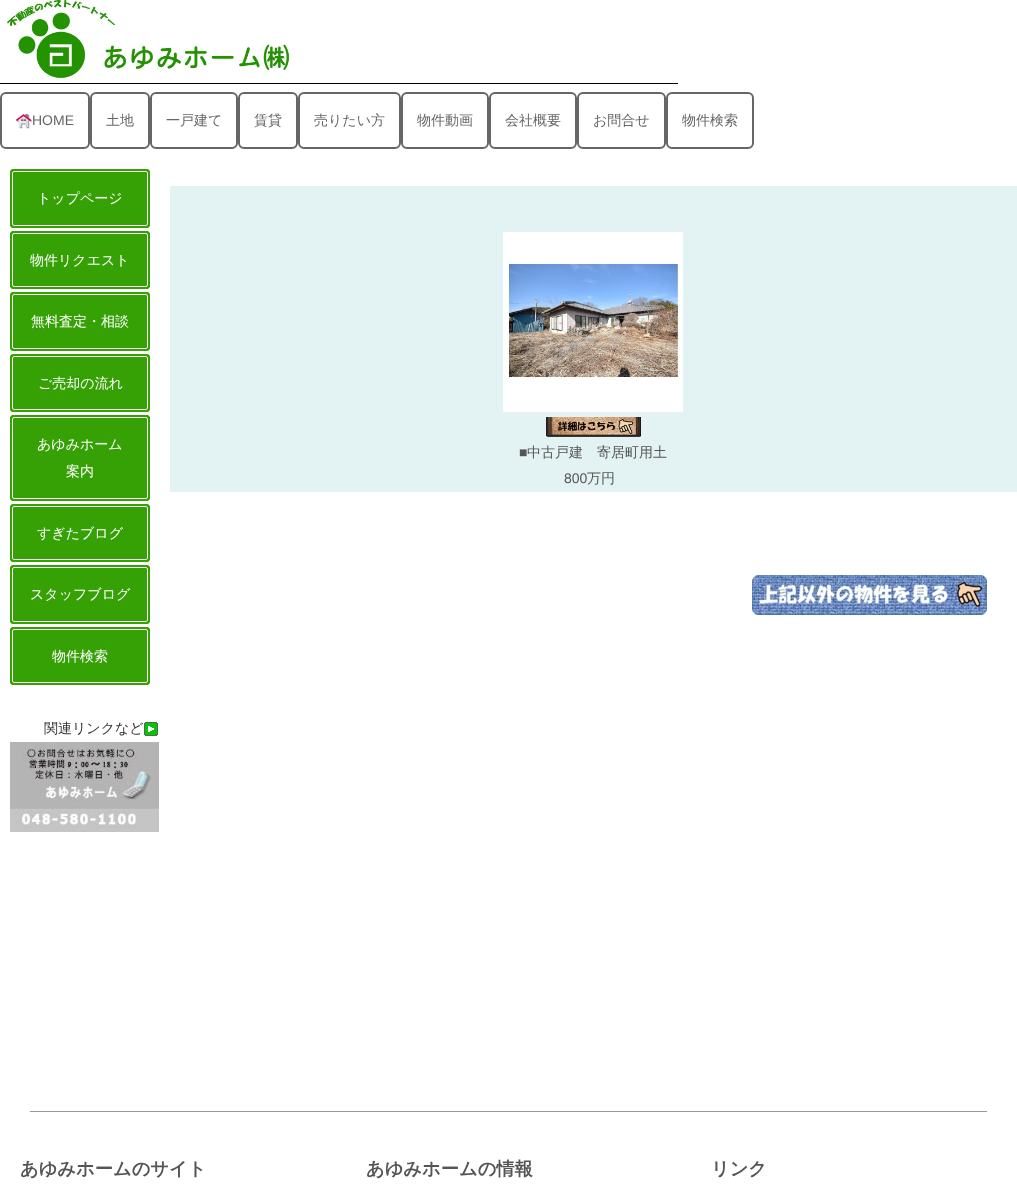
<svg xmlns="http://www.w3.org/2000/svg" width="1017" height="1192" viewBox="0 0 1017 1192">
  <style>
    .t1 { font: 14px Liberation Sans; fill: #666; }
    .t2 { font: 500 14px WenQuanYi Zen Hei; fill: #666; }
    .t3 { font: 500 14px WenQuanYi Zen Hei; fill: #fff; }
    .t4 { font: 500 14px WenQuanYi Zen Hei; fill: #333; }
    .t5 { font: 14px Liberation Sans; fill: #555; }
    .t6 { font: 500 14px WenQuanYi Zen Hei; fill: #555; }
    .t7 { font: bold 18.25px WenQuanYi Zen Hei; fill: #555; }
  </style>
  <rect width="100%" height="100%" fill="#fff"/>
  <image x="7" y="0" width="283" height="81" href="images/1.png"/>
  <rect x="0" y="83" width="678" height="1" fill="#000"/>
  <rect x="1" y="93" width="88" height="55" rx="5" fill="none" stroke="#666" stroke-width="2"/>
  <image x="16" y="114" width="16" height="15" href="images/2.png"/>
  <text x="32" y="125" class="t1">HOME</text>
  <rect x="91" y="93" width="58" height="55" rx="5" fill="none" stroke="#666" stroke-width="2"/>
  <text x="106" y="125" class="t2">土地</text>
  <rect x="151" y="93" width="86" height="55" rx="5" fill="none" stroke="#666" stroke-width="2"/>
  <text x="166" y="125" class="t2">一戸建て</text>
  <rect x="239" y="93" width="58" height="55" rx="5" fill="none" stroke="#666" stroke-width="2"/>
  <text x="254" y="125" class="t2">賃貸</text>
  <rect x="299" y="93" width="101" height="55" rx="5" fill="none" stroke="#666" stroke-width="2"/>
  <text x="314" y="125" class="t2">売りたい方</text>
  <rect x="402" y="93" width="86" height="55" rx="5" fill="none" stroke="#666" stroke-width="2"/>
  <text x="417" y="125" class="t2">物件動画</text>
  <rect x="490" y="93" width="86" height="55" rx="5" fill="none" stroke="#666" stroke-width="2"/>
  <text x="505" y="125" class="t2">会社概要</text>
  <rect x="578" y="93" width="87" height="55" rx="5" fill="none" stroke="#666" stroke-width="2"/>
  <text x="593" y="125" class="t2">お問合せ</text>
  <rect x="667" y="93" width="86" height="55" rx="5" fill="none" stroke="#666" stroke-width="2"/>
  <text x="682" y="125" class="t2">物件検索</text>
  <rect x="10" y="169" width="140" height="59" rx="4" fill="#35a105"/>
  <rect x="12.5" y="171.5" width="135" height="54" rx="1.5" fill="none" stroke="#fff"/>
  <rect x="11" y="170" width="138" height="57" rx="3" fill="none" stroke="#35a105" stroke-width="2"/>
  <text x="37" y="203" class="t3">トップページ</text>
  <rect x="10" y="231" width="140" height="58" rx="4" fill="#35a105"/>
  <rect x="12.5" y="233.5" width="135" height="53" rx="1.5" fill="none" stroke="#fff"/>
  <rect x="11" y="232" width="138" height="56" rx="3" fill="none" stroke="#35a105" stroke-width="2"/>
  <text x="30" y="265" class="t3">物件リクエスト</text>
  <rect x="10" y="292" width="140" height="59" rx="4" fill="#35a105"/>
  <rect x="12.5" y="294.5" width="135" height="54" rx="1.5" fill="none" stroke="#fff"/>
  <rect x="11" y="293" width="138" height="57" rx="3" fill="none" stroke="#35a105" stroke-width="2"/>
  <text x="31" y="326" class="t3">無料査定・相談</text>
  <rect x="10" y="354" width="140" height="58" rx="4" fill="#35a105"/>
  <rect x="12.5" y="356.5" width="135" height="53" rx="1.5" fill="none" stroke="#fff"/>
  <rect x="11" y="355" width="138" height="56" rx="3" fill="none" stroke="#35a105" stroke-width="2"/>
  <text x="38" y="388" class="t3">ご売却の流れ</text>
  <rect x="10" y="415" width="140" height="86" rx="4" fill="#35a105"/>
  <rect x="12.5" y="417.5" width="135" height="81" rx="1.5" fill="none" stroke="#fff"/>
  <rect x="11" y="416" width="138" height="84" rx="3" fill="none" stroke="#35a105" stroke-width="2"/>
  <text x="37" y="449" class="t3">あゆみホーム</text>
  <text x="66" y="476" class="t3">案内</text>
  <rect x="10" y="504" width="140" height="58" rx="4" fill="#35a105"/>
  <rect x="12.5" y="506.5" width="135" height="53" rx="1.5" fill="none" stroke="#fff"/>
  <rect x="11" y="505" width="138" height="56" rx="3" fill="none" stroke="#35a105" stroke-width="2"/>
  <text x="37" y="538" class="t3">すぎたブログ</text>
  <rect x="10" y="565" width="140" height="59" rx="4" fill="#35a105"/>
  <rect x="12.5" y="567.5" width="135" height="54" rx="1.5" fill="none" stroke="#fff"/>
  <rect x="11" y="566" width="138" height="57" rx="3" fill="none" stroke="#35a105" stroke-width="2"/>
  <text x="30" y="599" class="t3">スタッフブログ</text>
  <rect x="10" y="627" width="140" height="58" rx="4" fill="#35a105"/>
  <rect x="12.5" y="629.5" width="135" height="53" rx="1.5" fill="none" stroke="#fff"/>
  <rect x="11" y="628" width="138" height="56" rx="3" fill="none" stroke="#35a105" stroke-width="2"/>
  <text x="52" y="661" class="t3">物件検索</text>
  <text x="44" y="733" class="t4">関連リンクなど</text>
  <image x="144" y="722" width="14" height="14" href="images/3.png"/>
  <image x="10" y="742" width="149" height="90" href="images/4.png"/>
  <rect x="170" y="186" width="847" height="306" fill="#e3f2f2"/>
  <image x="503" y="232" width="180" height="180" href="images/5.png"/>
  <image x="545" y="417" width="96" height="20" href="images/6.png"/>
  <text x="519" y="457" class="t5">■</text>
  <text x="527" y="457" class="t6">中古戸建　寄居町用土</text>
  <text x="564" y="483" class="t5">800</text>
  <text x="587" y="483" class="t6">万円</text>
  <image x="752" y="575" width="235" height="40" href="images/7.png"/>
  <rect x="30" y="1111" width="957" height="1" fill="#999"/>
  <text x="20" y="1175" class="t7">あゆみホームのサイト</text>
  <text x="366" y="1175" class="t7">あゆみホームの情報</text>
  <text x="711" y="1175" class="t7">リンク</text>
</svg>
